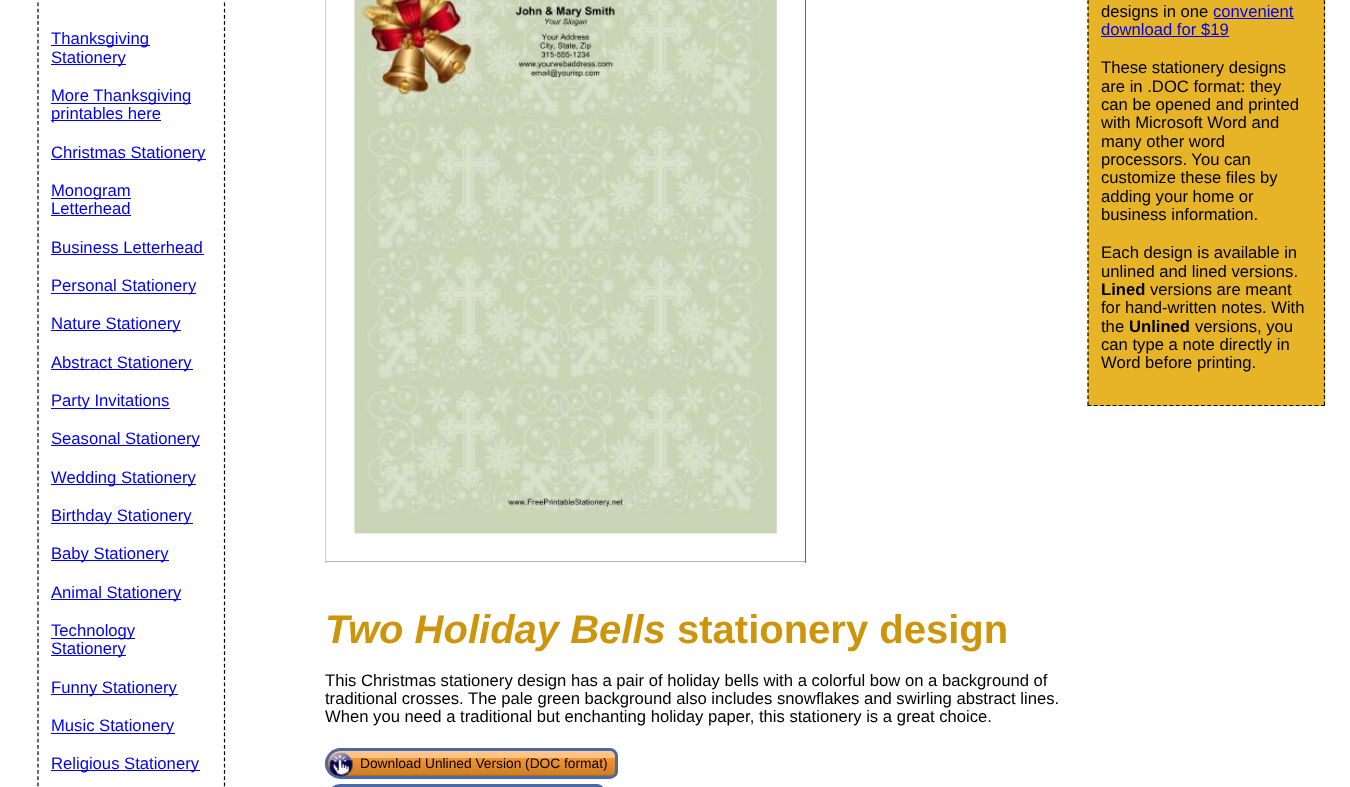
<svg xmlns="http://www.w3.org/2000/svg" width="1350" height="787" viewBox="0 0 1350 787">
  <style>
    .t1 { font: 16.65px Liberation Sans; fill: #00e; }
    .t2 { font: italic bold 40px Liberation Sans; fill: #cd950c; }
    .t3 { font: bold 40px Liberation Sans; fill: #cd950c; }
    .t4 { font: 16.65px Liberation Sans; fill: #000; }
    .t5 { font: 13.75px Liberation Sans; fill: #000; }
    .t6 { font: bold 16.65px Liberation Sans; fill: #000; }
  </style>
  <defs>
    <clipPath id="clip1"><path d="M340.5 748H610C614.5 748 618 751.5 618 756V771C618 775.5 614.5 779 610 779H340.5C332 779 325 772 325 763.5C325 755 332 748 340.5 748Z"/></clipPath>
    <linearGradient id="g1" gradientUnits="userSpaceOnUse" x1="471" y1="750" x2="471" y2="776"><stop offset="0" stop-color="#ffd09e"/><stop offset="0.15" stop-color="#ffc384"/><stop offset="0.3" stop-color="#ffc384"/><stop offset="0.31" stop-color="#f49530"/><stop offset="0.94" stop-color="#d07e29"/><stop offset="0.95" stop-color="#bf7425"/><stop offset="1" stop-color="#a46420"/></linearGradient>
  </defs>
  <rect width="100%" height="100%" fill="#fff"/>
  <path d="M224.5-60V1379" fill="none" stroke="#000" stroke-width="1.2" stroke-dasharray="3.75 2.49"/>
  <path d="M38-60V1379" fill="none" stroke="#000" stroke-width="1.2" stroke-dasharray="3.75 2.49"/>
  <rect x="51" y="45" width="99" height="1" fill="#00e"/>
  <text x="51" y="44" class="t1">Thanksgiving</text>
  <rect x="51" y="64" width="75" height="1" fill="#00e"/>
  <text x="51" y="63" class="t1">Stationery</text>
  <rect x="51" y="103" width="140" height="1" fill="#00e"/>
  <text x="51" y="101" class="t1">More Thanksgiving</text>
  <rect x="51" y="120" width="110" height="1" fill="#00e"/>
  <text x="51" y="119" class="t1">printables here</text>
  <rect x="51" y="159" width="155" height="1" fill="#00e"/>
  <text x="51" y="158" class="t1">Christmas Stationery</text>
  <rect x="51" y="198" width="80" height="1" fill="#00e"/>
  <text x="51" y="196" class="t1">Monogram</text>
  <text x="51" y="214" class="t1">Letterhead</text>
  <rect x="51" y="215" width="80" height="1" fill="#00e"/>
  <text x="51" y="253" class="t1">Business Letterhead</text>
  <rect x="51" y="254" width="153" height="1" fill="#00e"/>
  <rect x="51" y="293" width="145" height="1" fill="#00e"/>
  <text x="51" y="291" class="t1">Personal Stationery</text>
  <rect x="51" y="330" width="130" height="1" fill="#00e"/>
  <text x="51" y="329" class="t1">Nature Stationery</text>
  <rect x="51" y="369" width="142" height="1" fill="#00e"/>
  <text x="51" y="368" class="t1">Abstract Stationery</text>
  <rect x="51" y="408" width="119" height="1" fill="#00e"/>
  <text x="51" y="406" class="t1">Party Invitations</text>
  <rect x="51" y="445" width="149" height="1" fill="#00e"/>
  <text x="51" y="444" class="t1">Seasonal Stationery</text>
  <rect x="51" y="484" width="145" height="1" fill="#00e"/>
  <text x="51" y="483" class="t1">Wedding Stationery</text>
  <rect x="51" y="523" width="142" height="1" fill="#00e"/>
  <text x="51" y="521" class="t1">Birthday Stationery</text>
  <rect x="51" y="560" width="118" height="1" fill="#00e"/>
  <text x="51" y="559" class="t1">Baby Stationery</text>
  <rect x="51" y="599" width="130" height="1" fill="#00e"/>
  <text x="51" y="598" class="t1">Animal Stationery</text>
  <rect x="51" y="638" width="84" height="1" fill="#00e"/>
  <text x="51" y="636" class="t1">Technology</text>
  <rect x="51" y="655" width="75" height="1" fill="#00e"/>
  <text x="51" y="654" class="t1">Stationery</text>
  <rect x="51" y="694" width="127" height="1" fill="#00e"/>
  <text x="51" y="693" class="t1">Funny Stationery</text>
  <rect x="51" y="733" width="124" height="1" fill="#00e"/>
  <text x="51" y="731" class="t1">Music Stationery</text>
  <rect x="51" y="770" width="149" height="1" fill="#00e"/>
  <text x="51" y="769" class="t1">Religious Stationery</text>
  <rect x="805" y="0" width="1" height="563" fill="#666"/>
  <rect x="325" y="561" width="481" height="1" fill="#666"/>
  <rect x="325" y="0" width="1" height="563" fill="#ccc"/>
  <image x="326" y="0" width="479" height="562" href="images/1.png"/>
  <text x="325" y="643" class="t2">Two Holiday Bells</text>
  <text x="677" y="643" class="t3">stationery design</text>
  <text x="325" y="686" class="t4">This Christmas stationery design has a pair of holiday bells with a colorful bow on a background of</text>
  <text x="325" y="704" class="t4">traditional crosses. The pale green background also includes snowflakes and swirling abstract lines.</text>
  <text x="325" y="722" class="t4">When you need a traditional but enchanting holiday paper, this stationery is a great choice.</text>
  <g clip-path="url(#clip1)">
    <rect x="325" y="750" width="293" height="26" fill="url(#g1)"/>
  </g>
  <path d="M340.5 749.5H610C613.5 749.5 616.5 752.5 616.5 756V771C616.5 774.5 613.5 777.5 610 777.5H340.5C333 777.5 326.5 771 326.5 763.5C326.5 756 333 749.5 340.5 749.5Z" fill="none" stroke="#4c69a4" stroke-width="3"/>
  <image x="328" y="751" width="25" height="26" href="images/2.png"/>
  <text x="360" y="768" class="t5">Download Unlined Version (DOC format)</text>
  <path d="M340.5 785.5H597C600.5 785.5 603.5 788.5 603.5 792V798C603.5 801.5 600.5 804.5 597 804.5H340.5C333 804.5 326.5 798 326.5 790.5V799.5C326.5 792 333 785.5 340.5 785.5Z" fill="none" stroke="#4c69a4" stroke-width="3"/>
  <rect x="1088" y="0" width="237" height="406" fill="#e6b426"/>
  <path d="M1324.5-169V406" fill="none" stroke="#000" stroke-width="1.2" stroke-dasharray="3.75 2.52"/>
  <path d="M1087.5 405.5H1325" fill="none" stroke="#000" stroke-width="1.2" stroke-dasharray="3.75 2.56"/>
  <path d="M1088-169V406" fill="none" stroke="#000" stroke-width="1.2" stroke-dasharray="3.75 2.52"/>
  <text x="1101" y="17" class="t4">designs in one</text>
  <text x="1213" y="17" class="t1">convenient</text>
  <rect x="1214" y="18" width="80" height="1" fill="#00e"/>
  <rect x="1101" y="36" width="128" height="1" fill="#00e"/>
  <text x="1101" y="35" class="t1">download for $19</text>
  <text x="1101" y="73" class="t4">These stationery designs</text>
  <text x="1101" y="92" class="t4">are in .DOC format: they</text>
  <text x="1101" y="110" class="t4">can be opened and printed</text>
  <text x="1101" y="128" class="t4">with Microsoft Word and</text>
  <text x="1101" y="147" class="t4">many other word</text>
  <text x="1101" y="165" class="t4">processors. You can</text>
  <text x="1101" y="183" class="t4">customize these files by</text>
  <text x="1101" y="202" class="t4">adding your home or</text>
  <text x="1101" y="220" class="t4">business information.</text>
  <text x="1101" y="258" class="t4">Each design is available in</text>
  <text x="1101" y="277" class="t4">unlined and lined versions.</text>
  <text x="1101" y="295" class="t6">Lined</text>
  <text x="1150" y="295" class="t4">versions are meant</text>
  <text x="1101" y="313" class="t4">for hand-written notes. With</text>
  <text x="1101" y="332" class="t4">the</text>
  <text x="1129" y="332" class="t6">Unlined</text>
  <text x="1195" y="332" class="t4">versions, you</text>
  <text x="1101" y="350" class="t4">can type a note directly in</text>
  <text x="1101" y="368" class="t4">Word before printing.</text>
</svg>
